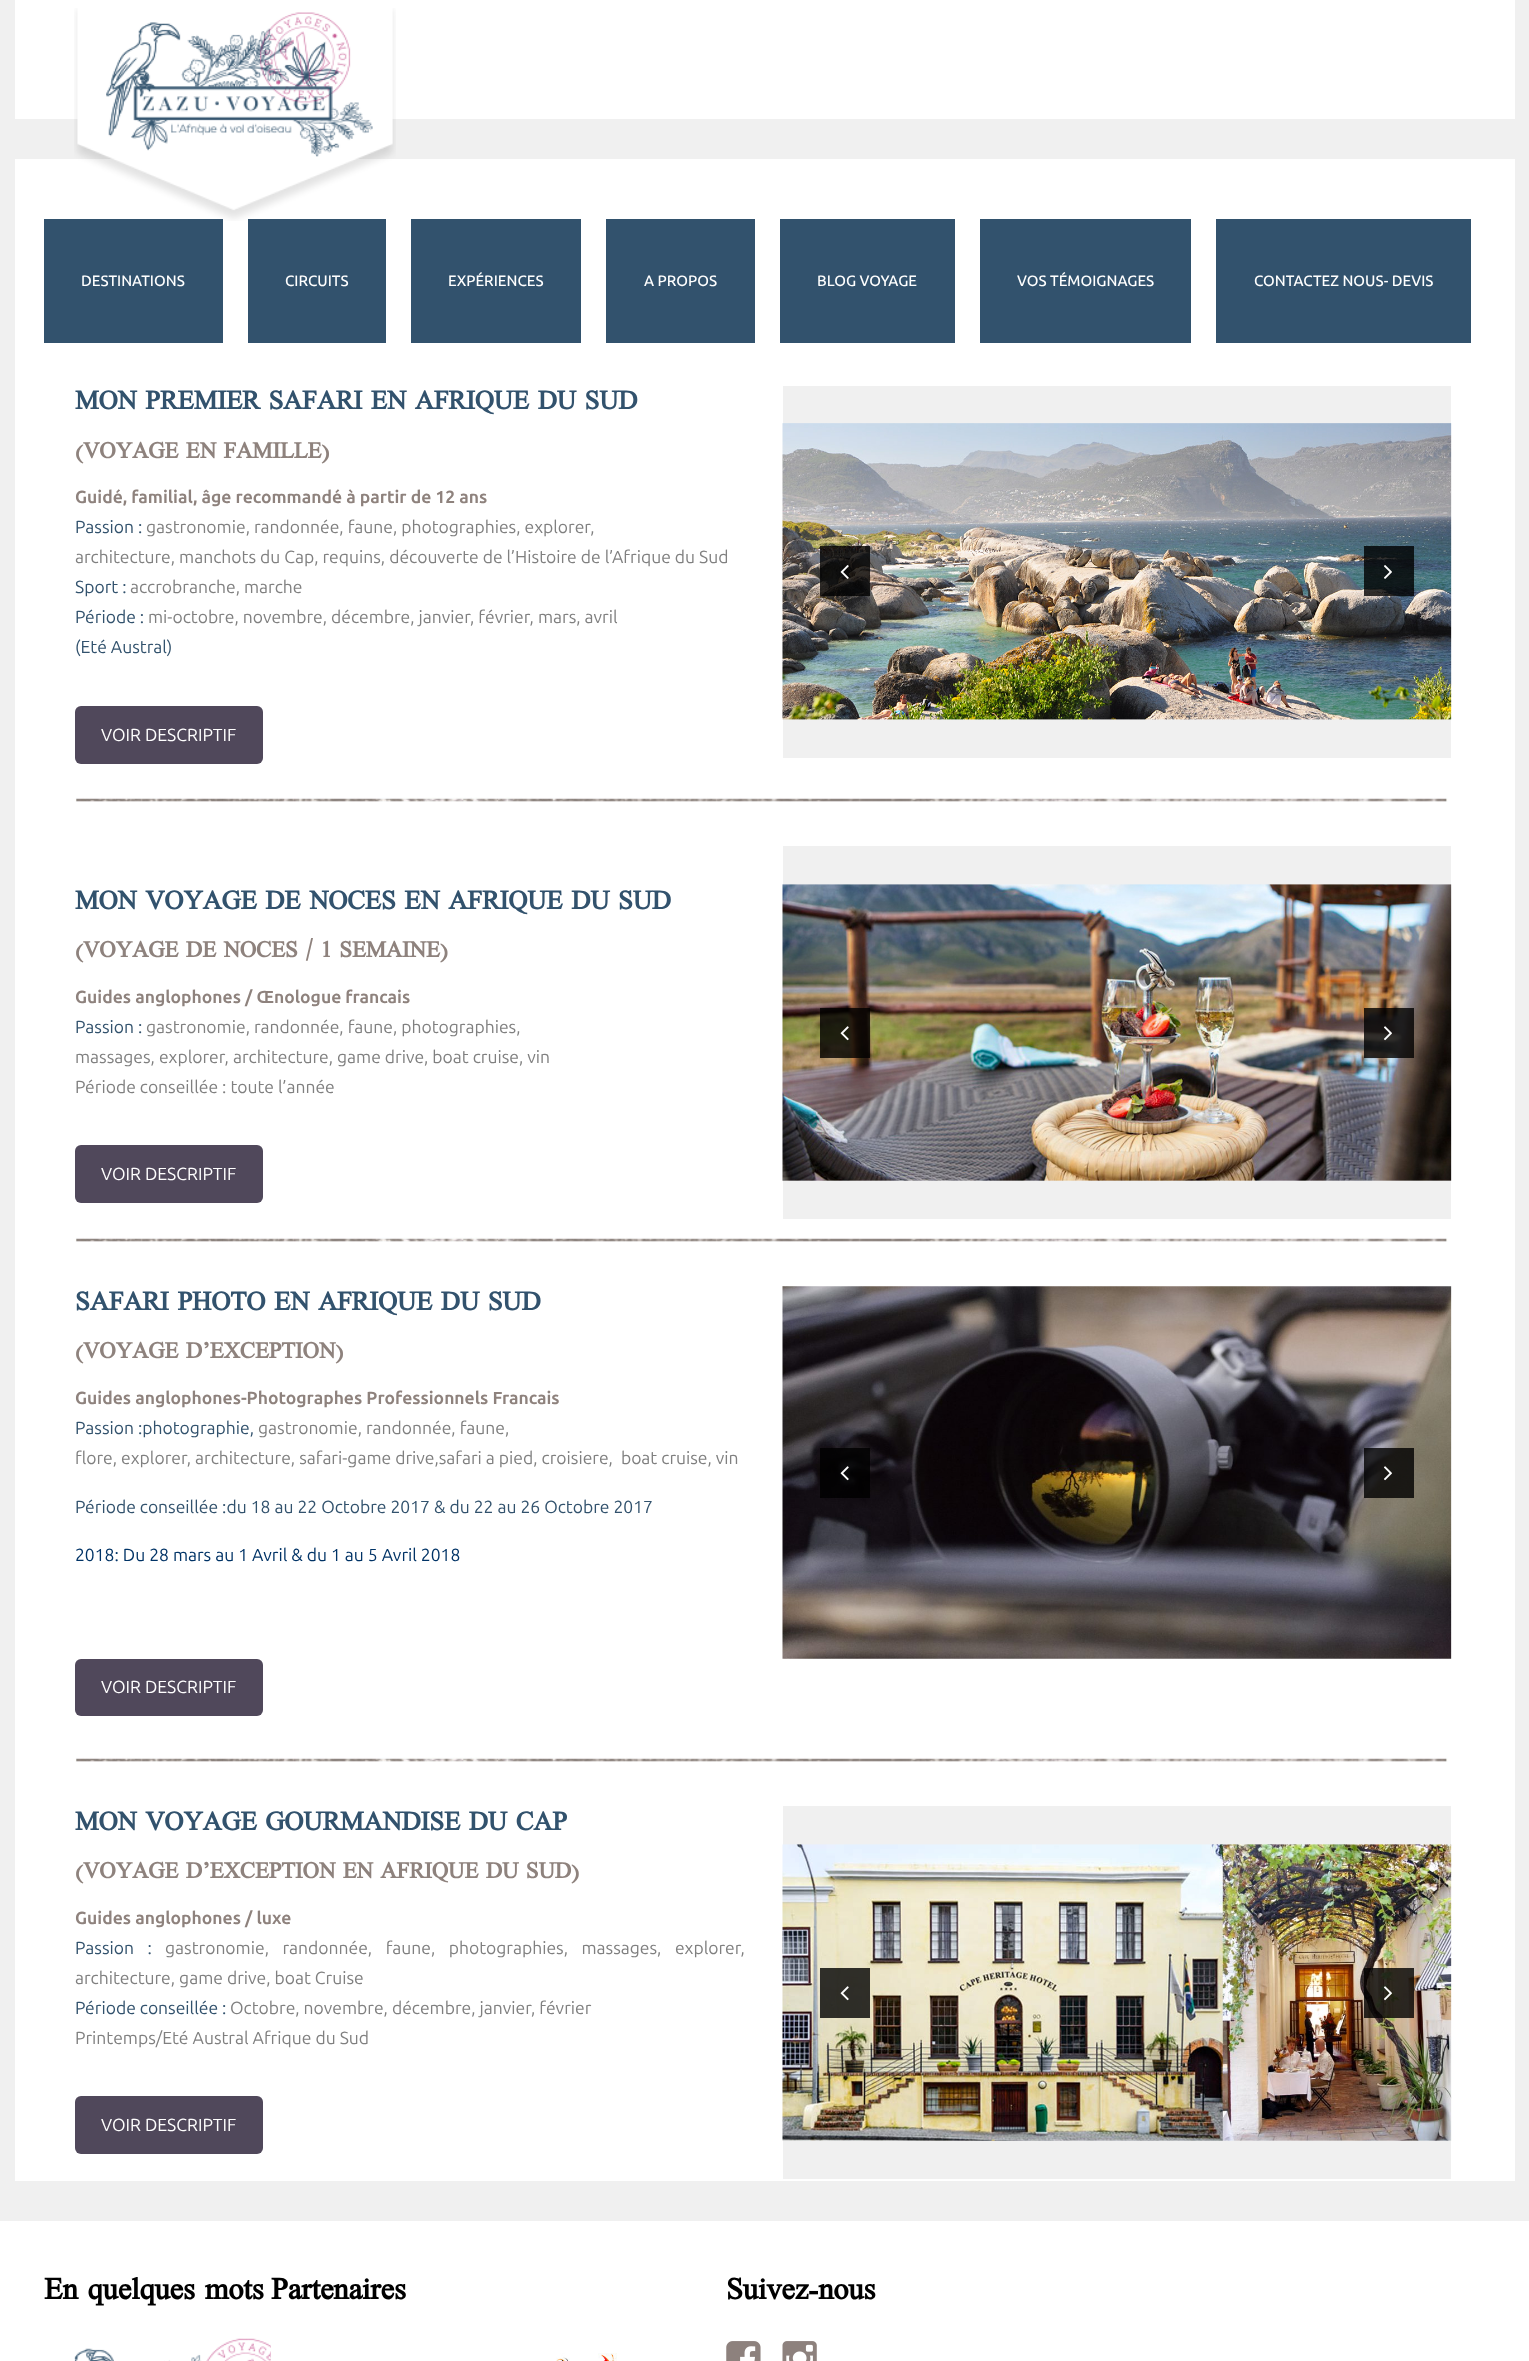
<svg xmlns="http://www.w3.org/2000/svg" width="1529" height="2361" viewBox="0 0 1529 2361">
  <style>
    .t1 { font: 500 15px Ubuntu; fill: #fff; }
    .t2 { font: bold 35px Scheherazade; fill: #32526d; }
    .t3 { font: bold 30px Scheherazade; fill: #8e827d; }
    .t4 { font: bold 17.5px Ubuntu; fill: #8e827d; }
    .t5 { font: 17.5px Ubuntu; fill: #32526d; }
    .t6 { font: 17.5px Ubuntu; fill: #808080; }
    .t7 { font: 17.5px Ubuntu; fill: #fff; }
    .t8 { font: 17.5px Ubuntu; fill: #036; }
    .t9 { font: bold 40px Scheherazade; fill: #000; }
  </style>
  <rect width="100%" height="100%" fill="#f0f0f0"/>
  <rect x="15" y="0" width="1500" height="119" fill="#fff"/>
  <rect x="15" y="159" width="1500" height="2022" fill="#fff"/>
  <image x="74" y="8" width="322" height="213" href="images/1.png"/>
  <rect x="44" y="219" width="179" height="124" fill="#32526d"/>
  <text x="81" y="286" class="t1">DESTINATIONS</text>
  <rect x="248" y="219" width="138" height="124" fill="#32526d"/>
  <text x="285" y="286" class="t1">CIRCUITS</text>
  <rect x="411" y="219" width="170" height="124" fill="#32526d"/>
  <text x="448" y="286" class="t1">EXPÉRIENCES</text>
  <rect x="606" y="219" width="149" height="124" fill="#32526d"/>
  <text x="644" y="286" class="t1">A PROPOS</text>
  <rect x="780" y="219" width="175" height="124" fill="#32526d"/>
  <text x="817" y="286" class="t1">BLOG VOYAGE</text>
  <rect x="980" y="219" width="211" height="124" fill="#32526d"/>
  <text x="1017" y="286" class="t1">VOS TÉMOIGNAGES</text>
  <rect x="1216" y="219" width="255" height="124" fill="#32526d"/>
  <text x="1254" y="286" class="t1">CONTACTEZ NOUS- DEVIS</text>
  <text x="75" y="409" class="t2">MON PREMIER SAFARI EN AFRIQUE DU SUD</text>
  <text x="75" y="458" class="t3">(VOYAGE EN FAMILLE)</text>
  <text x="75" y="503" class="t4">Guidé, familial, âge recommandé à partir de 12 ans</text>
  <text x="75" y="533" class="t5">Passion :</text>
  <text x="146" y="533" class="t6">gastronomie, randonnée, faune, photographies, explorer,</text>
  <text x="75" y="563" class="t6">architecture, manchots du Cap, requins, découverte de l’Histoire de l’Afrique du Sud</text>
  <text x="75" y="593" class="t5">Sport :</text>
  <text x="130" y="593" class="t6">accrobranche, marche</text>
  <text x="75" y="623" class="t5">Période :</text>
  <text x="148" y="623" class="t6">mi-octobre, novembre, décembre, janvier, février, mars, avril</text>
  <text x="75" y="653" class="t5">(Eté Austral)</text>
  <rect x="75" y="706" width="188" height="58" rx="6" fill="#50485b"/>
  <text x="101" y="741" class="t7">VOIR DESCRIPTIF</text>
  <rect x="783" y="386" width="668" height="372" fill="#f0f0f0"/>
  <image x="782" y="423" width="670" height="297" href="images/2.png"/>
  <rect x="820" y="546" width="50" height="50" fill="#000000cc"/>
  <image x="840" y="565" width="9" height="14" href="images/3.png"/>
  <rect x="1364" y="546" width="50" height="50" fill="#000000cc"/>
  <image x="1384" y="565" width="8" height="14" href="images/4.png"/>
  <image x="75" y="797" width="1373" height="5" href="images/5.png"/>
  <text x="75" y="909" class="t2">MON VOYAGE DE NOCES EN AFRIQUE DU SUD</text>
  <text x="75" y="957" class="t3">(VOYAGE DE NOCES / 1 SEMAINE)</text>
  <text x="75" y="1003" class="t4">Guides anglophones / Œnologue francais</text>
  <text x="75" y="1033" class="t5">Passion :</text>
  <text x="146" y="1033" class="t6">gastronomie, randonnée, faune, photographies,</text>
  <text x="75" y="1063" class="t6">massages, explorer, architecture, game drive, boat cruise, vin</text>
  <text x="75" y="1093" class="t6">Période conseillée : toute l’année</text>
  <rect x="75" y="1145" width="188" height="58" rx="6" fill="#50485b"/>
  <text x="101" y="1180" class="t7">VOIR DESCRIPTIF</text>
  <rect x="783" y="846" width="668" height="373" fill="#f0f0f0"/>
  <image x="782" y="884" width="670" height="297" href="images/6.png"/>
  <rect x="820" y="1008" width="50" height="50" fill="#000000cc"/>
  <image x="840" y="1026" width="9" height="15" href="images/7.png"/>
  <rect x="1364" y="1008" width="50" height="50" fill="#000000cc"/>
  <image x="1384" y="1026" width="8" height="15" href="images/8.png"/>
  <image x="75" y="1237" width="1373" height="5" href="images/5.png"/>
  <text x="75" y="1310" class="t2">SAFARI PHOTO EN AFRIQUE DU SUD</text>
  <text x="75" y="1358" class="t3">(VOYAGE D’EXCEPTION)</text>
  <text x="75" y="1404" class="t4">Guides anglophones-Photographes Professionnels Francais</text>
  <text x="75" y="1434" class="t5">Passion :photographie,</text>
  <text x="258" y="1434" class="t6">gastronomie, randonnée, faune,</text>
  <text x="75" y="1464" class="t6" xml:space="preserve">flore, explorer, architecture, safari-game drive,safari a pied, croisiere,  boat cruise, vin</text>
  <text x="75" y="1513" class="t5">Période conseillée :du 18 au 22 Octobre 2017 &amp; du 22 au 26 Octobre 2017</text>
  <text x="75" y="1561" class="t8">2018: Du 28 mars au 1 Avril &amp; du 1 au 5 Avril 2018</text>
  <image x="782" y="1286" width="670" height="373" href="images/9.png"/>
  <rect x="820" y="1448" width="50" height="50" fill="#000000cc"/>
  <image x="840" y="1466" width="9" height="15" href="images/10.png"/>
  <rect x="1364" y="1448" width="50" height="50" fill="#000000cc"/>
  <image x="1384" y="1466" width="8" height="15" href="images/11.png"/>
  <rect x="75" y="1659" width="188" height="57" rx="6" fill="#50485b"/>
  <text x="101" y="1693" class="t7">VOIR DESCRIPTIF</text>
  <image x="75" y="1757" width="1373" height="5" href="images/5.png"/>
  <text x="75" y="1830" class="t2">MON VOYAGE GOURMANDISE DU CAP</text>
  <text x="75" y="1878" class="t3">(VOYAGE D’EXCEPTION EN AFRIQUE DU SUD)</text>
  <text x="75" y="1924" class="t4">Guides anglophones / luxe</text>
  <text x="75" y="1954" word-spacing="9.5" class="t5">Passion :</text>
  <text x="165" y="1954" word-spacing="9.5" class="t6">gastronomie, randonnée, faune, photographies, massages, explorer,</text>
  <text x="75" y="1984" class="t6">architecture, game drive, boat Cruise</text>
  <text x="75" y="2014" class="t5">Période conseillée :</text>
  <text x="230" y="2014" class="t6">Octobre, novembre, décembre, janvier, février</text>
  <text x="75" y="2044" class="t6">Printemps/Eté Austral Afrique du Sud</text>
  <rect x="75" y="2096" width="188" height="58" rx="6" fill="#50485b"/>
  <text x="101" y="2131" class="t7">VOIR DESCRIPTIF</text>
  <rect x="783" y="1806" width="668" height="373" fill="#f0f0f0"/>
  <image x="782" y="1844" width="670" height="297" href="images/12.png"/>
  <rect x="820" y="1968" width="50" height="50" fill="#000000cc"/>
  <image x="840" y="1986" width="9" height="15" href="images/13.png"/>
  <rect x="1364" y="1968" width="50" height="50" fill="#000000cc"/>
  <image x="1384" y="1986" width="8" height="15" href="images/14.png"/>
  <rect x="0" y="2221" width="1529" height="140" fill="#fff"/>
  <text x="44" y="2299" class="t9">En quelques mots</text>
  <image x="74" y="2338" width="197" height="23" href="images/15.png"/>
  <text x="271" y="2299" class="t9">Partenaires</text>
  <text x="726" y="2299" class="t9">Suivez-nous</text>
  <image x="726" y="2341" width="35" height="20" href="images/16.png"/>
  <image x="782" y="2341" width="35" height="20" href="images/17.png"/>
  <image x="556" y="2353" width="61" height="8" href="images/18.png"/>
</svg>
